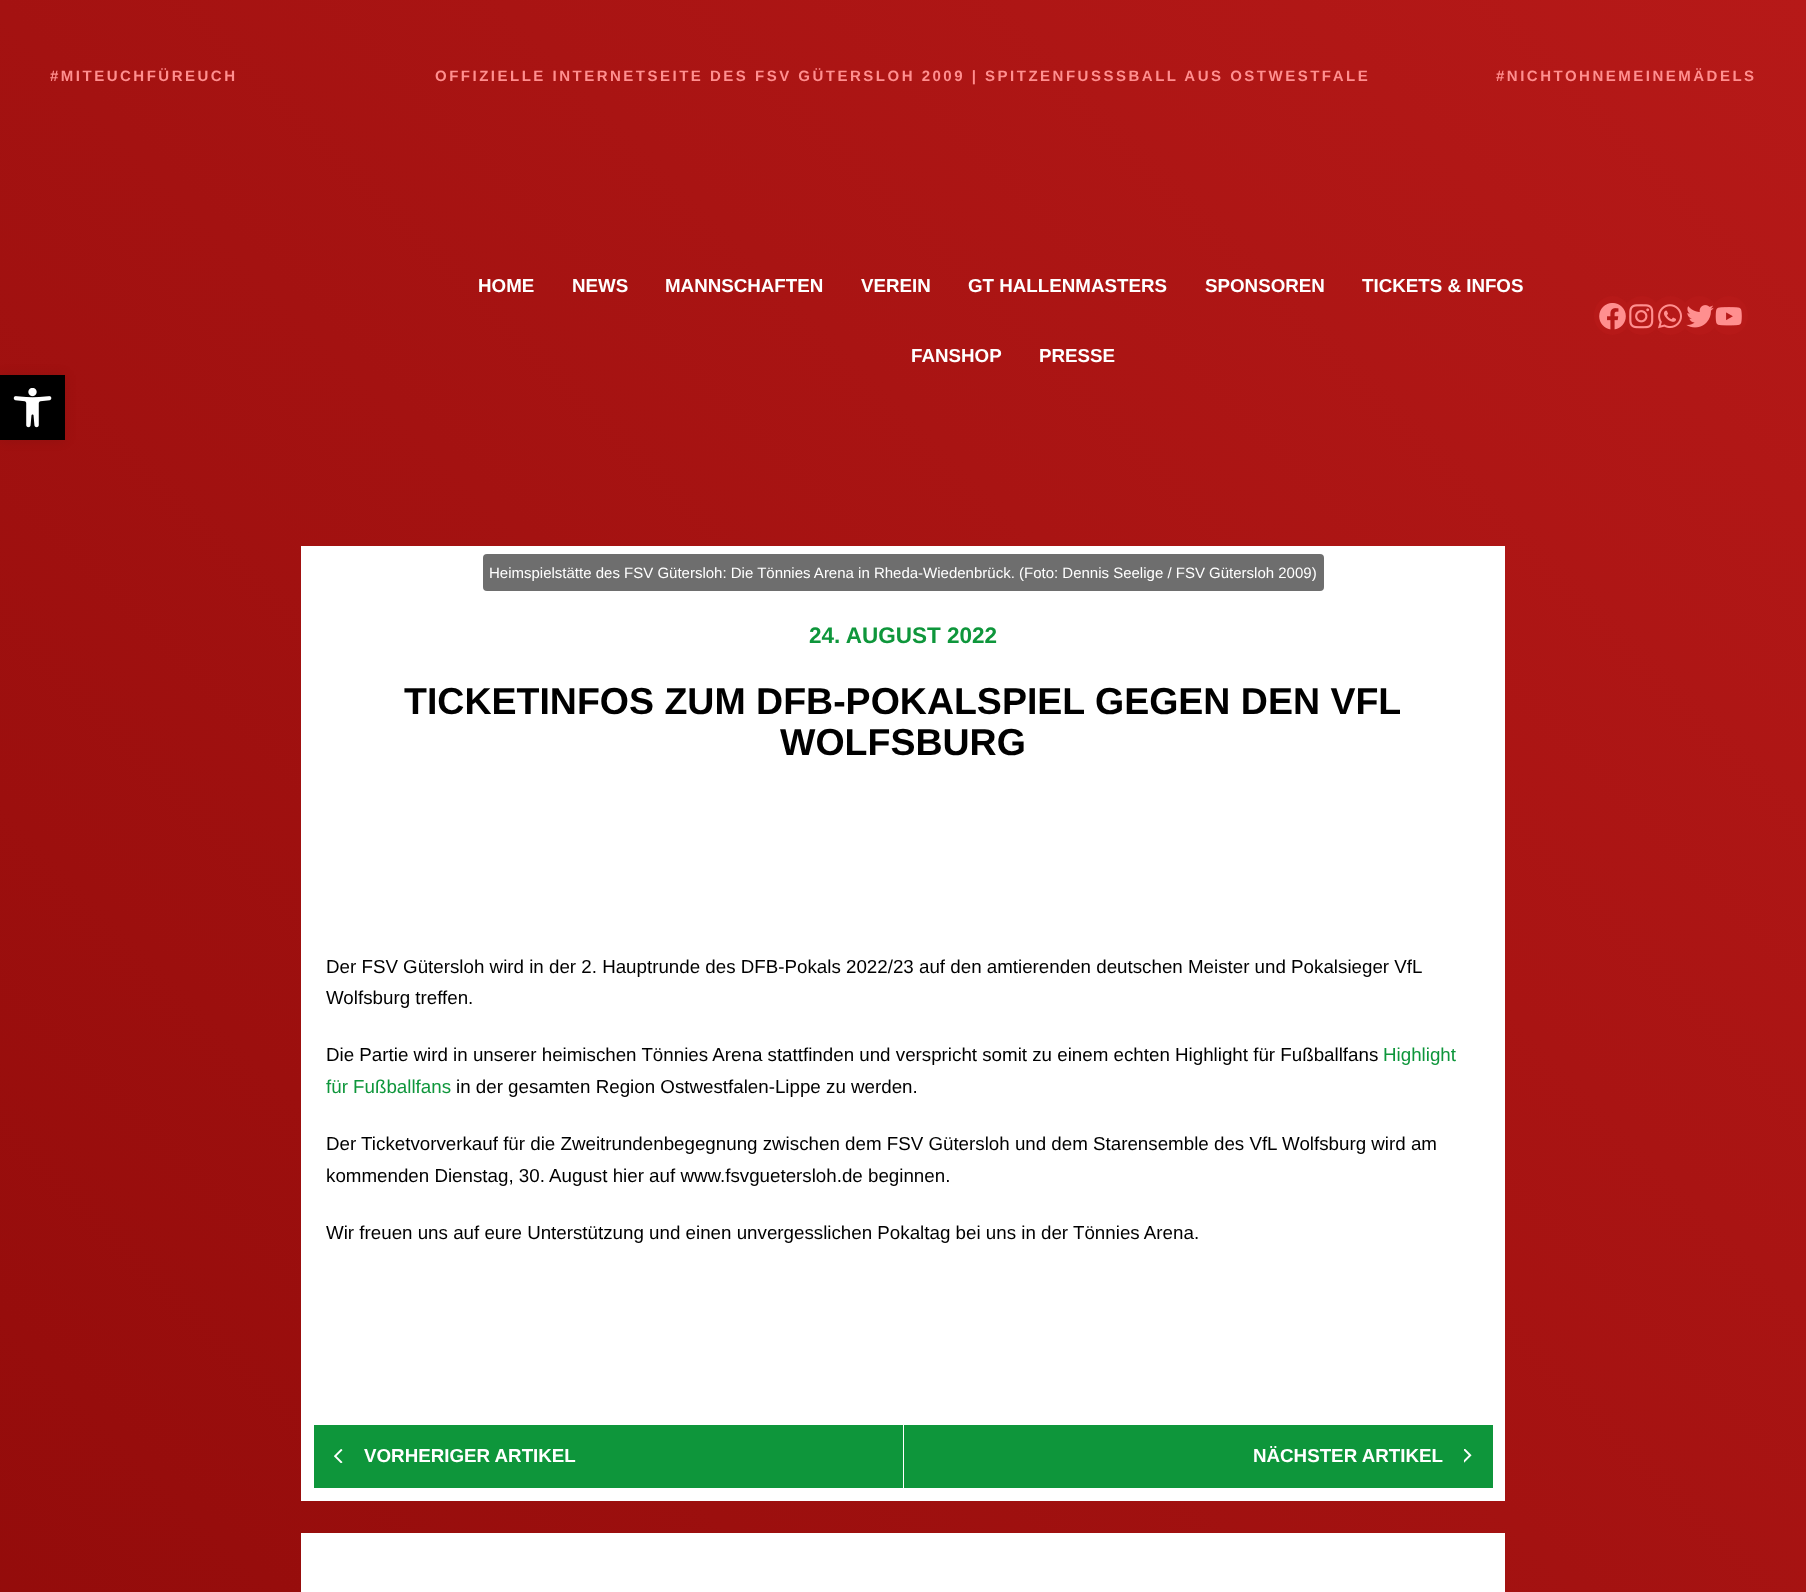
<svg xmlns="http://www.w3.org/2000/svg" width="1806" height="1592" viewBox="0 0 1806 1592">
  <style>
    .t1 { font: bold 15px Liberation Sans; letter-spacing: 2.5px; fill: #ff8f8f; }
    .t2 { font: bold 18.75px Liberation Sans; fill: #fff; }
    .t3 { font: 15px Liberation Sans; fill: #fff; }
    .t4 { font: bold 22.5px Liberation Sans; fill: #0e963b; }
    .t5 { font: bold 37.5px Liberation Sans; fill: #000; }
    .t6 { font: 18.75px Liberation Sans; fill: #000; }
    .t7 { font: 18.75px Liberation Sans; fill: #0e963b; }
  </style>
  <defs>
    <linearGradient id="g1" gradientUnits="userSpaceOnUse" x1="-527" y1="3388" x2="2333" y2="527"><stop offset="0" stop-color="#7d0302"/><stop offset="1" stop-color="#b61918"/></linearGradient>
  </defs>
  <rect width="100%" height="100%" fill="#fff"/>
  <rect x="0" y="0" width="1806" height="1592" fill="url(#g1)"/>
  <rect x="0" y="375" width="65" height="65" fill="#0000001a" filter="blur(6px)"/>
  <rect x="0" y="375" width="65" height="65" fill="#000"/>
  <image x="13" y="388" width="39" height="40" href="images/1.png"/>
  <text x="50" y="81" class="t1">#MITEUCHFÜREUCH</text>
  <text x="435" y="81" class="t1">OFFIZIELLE INTERNETSEITE DES FSV GÜTERSLOH 2009 | SPITZENFUSS</text>
  <text x="1116" y="81" class="t1">SBALL AUS OSTWESTFALE</text>
  <text x="1496" y="81" class="t1">#NICHTOHNEMEINEMÄDELS</text>
  <text x="478" y="292" class="t2">HOME</text>
  <text x="572" y="292" class="t2">NEWS</text>
  <text x="665" y="292" class="t2">MANNSCHAFTEN</text>
  <text x="861" y="292" class="t2">VEREIN</text>
  <text x="968" y="292" class="t2">GT HALLENMASTERS</text>
  <text x="1205" y="292" class="t2">SPONSOREN</text>
  <text x="1362" y="292" class="t2">TICKETS &amp; INFOS</text>
  <text x="911" y="362" class="t2">FANSHOP</text>
  <text x="1039" y="362" class="t2">PRESSE</text>
  <rect x="1594" y="296" width="37" height="39" rx="18.5" fill="#b61918"/>
  <rect x="1623" y="296" width="38" height="39" rx="19" fill="#b61918"/>
  <image x="1599" y="303" width="27" height="27" href="images/2.png"/>
  <circle cx="1670.5" cy="315.5" r="19.5" fill="#b61918"/>
  <image x="1629" y="304" width="25" height="25" href="images/3.png"/>
  <circle cx="1699.5" cy="315.5" r="19.5" fill="#b61918"/>
  <image x="1658" y="304" width="24" height="25" href="images/4.png"/>
  <rect x="1710" y="296" width="38" height="39" rx="19" fill="#b61918"/>
  <image x="1686" y="305" width="28" height="23" href="images/5.png"/>
  <image x="1715" y="307" width="27" height="19" href="images/6.png"/>
  <rect x="301" y="546" width="1204" height="955" fill="#fff"/>
  <rect x="483" y="554" width="841" height="37" rx="4" fill="#6e6e6e"/>
  <text x="489" y="578" class="t3">Heimspielstätte des FSV Gütersloh: Die Tönnies Arena in Rheda-Wiedenbrück. (Foto: Dennis Seelige / FSV Gütersloh 2009)</text>
  <text x="809" y="643" class="t4">24. AUGUST 2022</text>
  <text x="404" y="714" class="t5">TICKETINFOS ZUM DFB-POKALSPIEL GEGEN DEN VFL</text>
  <text x="780" y="755" class="t5">WOLFSBURG</text>
  <text x="326" y="973" class="t6">Der FSV Gütersloh wird in der 2. Hauptrunde des DFB-Pokals 2022/23 auf den amtierenden deutschen Meister und Pokalsieger VfL</text>
  <text x="326" y="1004" class="t6">Wolfsburg treffen.</text>
  <text x="326" y="1061" class="t6">Die Partie wird in unserer heimischen Tönnies Arena stattfinden und verspricht somit zu einem echten Highlight für Fußballfans</text>
  <text x="1383" y="1061" class="t7">Highlight</text>
  <text x="326" y="1093" class="t7">für Fußballfans</text>
  <text x="456" y="1093" class="t6">in der gesamten Region Ostwestfalen-Lippe zu werden.</text>
  <text x="326" y="1150" class="t6">Der Ticketvorverkauf für die Zweitrundenbegegnung zwischen dem FSV Gütersloh und dem Starensemble des VfL Wolfsburg wird am</text>
  <text x="326" y="1182" class="t6">kommenden Dienstag, 30. August hier auf www.fsvguetersloh.de beginnen.</text>
  <text x="326" y="1239" class="t6">Wir freuen uns auf eure Unterstützung und einen unvergesslichen Pokaltag bei uns in der Tönnies Arena.</text>
  <rect x="314" y="1425" width="1179" height="63" fill="#0e963b"/>
  <image x="334" y="1449" width="9" height="14" href="images/7.png"/>
  <text x="364" y="1462" class="t2">VORHERIGER ARTIKEL</text>
  <rect x="903" y="1425" width="1" height="63" fill="#fff"/>
  <text x="1253" y="1462" class="t2">NÄCHSTER ARTIKEL</text>
  <image x="1464" y="1449" width="8" height="14" href="images/8.png"/>
  <rect x="301" y="1533" width="1204" height="59" fill="#fff"/>
</svg>
